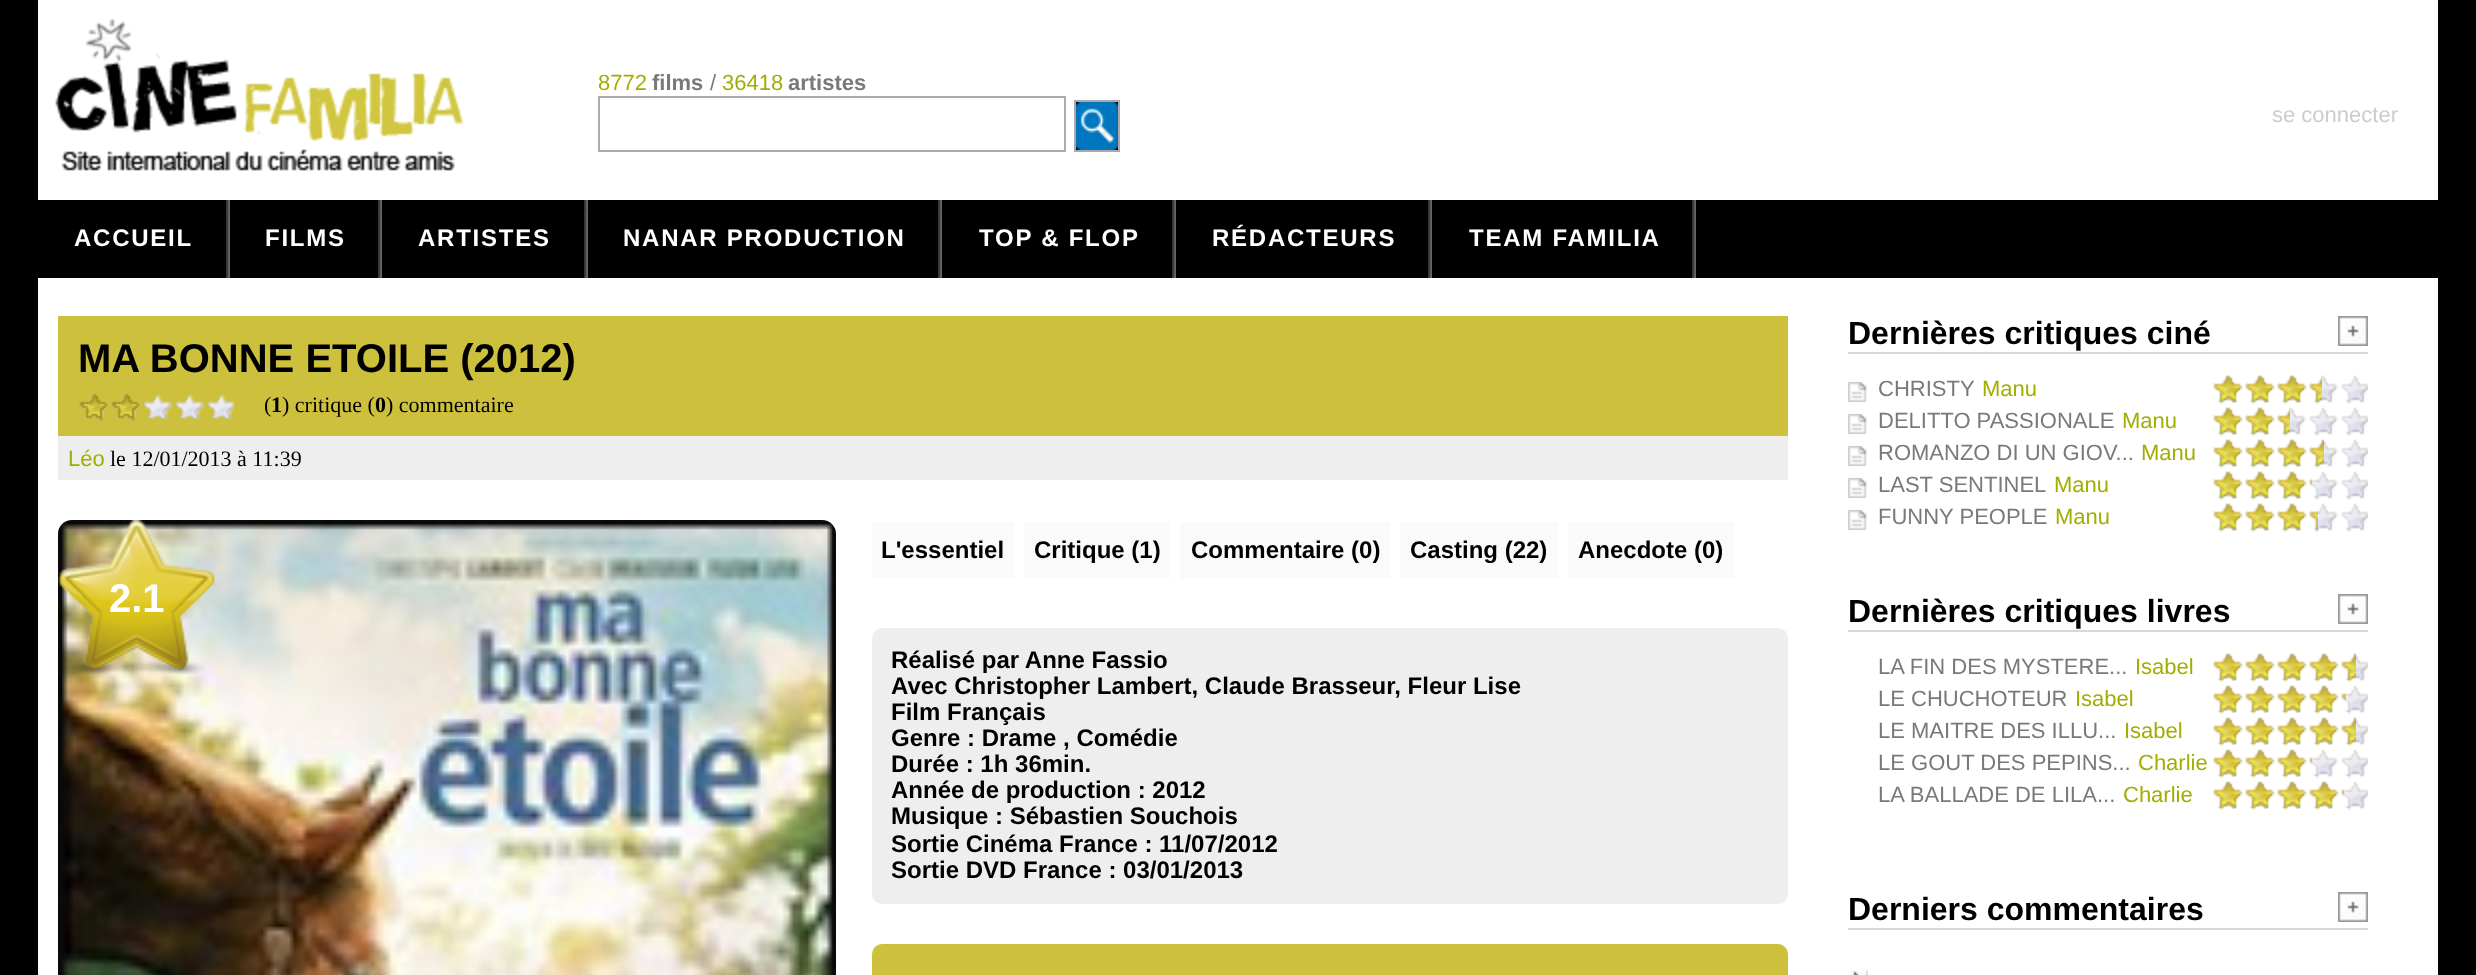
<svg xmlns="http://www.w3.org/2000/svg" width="2476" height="975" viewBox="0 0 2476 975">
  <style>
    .t1 { font: 22px Liberation Sans; fill: #a3ad00; }
    .t2 { font: bold 22px Liberation Sans; fill: #797979; }
    .t3 { font: 22px Liberation Sans; fill: #797979; }
    .t4 { font: 22px Liberation Sans; fill: #ccc; }
    .t5 { font: bold 24px Liberation Sans; letter-spacing: 1.75px; fill: #fff; }
    .t6 { font: bold 40px Liberation Sans; fill: #000; }
    .t7 { font: 22px Liberation Serif; fill: #000; }
    .t8 { font: bold 22px Liberation Serif; fill: #000; }
    .t9 { font: bold 40px Liberation Sans; fill: #fff; }
    .t10 { font: bold 24px Liberation Sans; fill: #000; }
    .t11 { font: bold 32px Liberation Sans; fill: #000; }
  </style>
  <rect width="100%" height="100%" fill="#000"/>
  <rect x="38" y="0" width="2400" height="975" fill="#fff"/>
  <image x="55" y="18" width="410" height="153" href="images/1.png"/>
  <text x="598" y="90" class="t1">8772</text>
  <text x="652" y="90" class="t2">films</text>
  <text x="710" y="90" class="t3">/</text>
  <text x="722" y="90" class="t1">36418</text>
  <text x="788" y="90" class="t2">artistes</text>
  <rect x="599" y="97" width="466" height="54" fill="none" stroke="#aaa" stroke-width="2"/>
  <rect x="1075" y="101" width="44" height="50" fill="none" stroke="#aaa" stroke-width="2"/>
  <image x="1076" y="102" width="42" height="48" href="images/2.png"/>
  <text x="2272" y="122" class="t4">se connecter</text>
  <rect x="38" y="200" width="2400" height="78" fill="#000"/>
  <image x="226" y="200" width="4" height="78" href="images/3.png"/>
  <text x="74" y="246" class="t5">ACCUEIL</text>
  <image x="378" y="200" width="4" height="78" href="images/3.png"/>
  <text x="265" y="246" class="t5">FILMS</text>
  <image x="584" y="200" width="4" height="78" href="images/3.png"/>
  <text x="418" y="246" class="t5">ARTISTES</text>
  <image x="938" y="200" width="4" height="78" href="images/3.png"/>
  <text x="623" y="246" class="t5">NANAR PRODUCTION</text>
  <image x="1172" y="200" width="4" height="78" href="images/3.png"/>
  <text x="979" y="246" class="t5">TOP &amp; FLOP</text>
  <image x="1428" y="200" width="4" height="78" href="images/3.png"/>
  <text x="1212" y="246" class="t5">RÉDACTEURS</text>
  <image x="1692" y="200" width="4" height="78" href="images/3.png"/>
  <text x="1469" y="246" class="t5">TEAM FAMILIA</text>
  <rect x="58" y="316" width="1730" height="120" fill="#cdc03d"/>
  <text x="78" y="372" class="t6">MA BONNE ETOILE (2012)</text>
  <image x="79" y="394" width="155" height="27" href="images/4.png"/>
  <image x="79" y="393" width="65" height="28" href="images/5.png"/>
  <text x="264" y="412" class="t7">(</text>
  <text x="271" y="412" class="t8">1</text>
  <text x="282" y="412" class="t7">) critique (</text>
  <text x="375" y="412" class="t8">0</text>
  <text x="386" y="412" class="t7">) commentaire</text>
  <rect x="58" y="436" width="1730" height="44" fill="#eee"/>
  <text x="68" y="466" class="t1">Léo</text>
  <text x="110" y="466" class="t7">le 12/01/2013 à 11:39</text>
  <image x="58" y="520" width="778" height="455" href="images/6.png"/>
  <image x="58" y="520" width="157" height="154" href="images/7.png"/>
  <text x="109" y="612" class="t9">2.1</text>
  <rect x="872" y="522" width="142" height="56" fill="#fafafa"/>
  <text x="881" y="558" class="t10">L'essentiel</text>
  <rect x="1024" y="522" width="146" height="56" fill="#fafafa"/>
  <text x="1034" y="558" class="t10">Critique (1)</text>
  <rect x="1180" y="522" width="210" height="56" fill="#fafafa"/>
  <text x="1191" y="558" class="t10">Commentaire (0)</text>
  <rect x="1400" y="522" width="158" height="56" fill="#fafafa"/>
  <text x="1410" y="558" class="t10">Casting (22)</text>
  <rect x="1568" y="522" width="166" height="56" fill="#fafafa"/>
  <text x="1578" y="558" class="t10">Anecdote (0)</text>
  <rect x="872" y="628" width="916" height="276" rx="10" fill="#eee"/>
  <text x="891" y="668" class="t10">Réalisé par Anne Fassio</text>
  <text x="891" y="694" class="t10">Avec Christopher Lambert, Claude Brasseur, Fleur Lise</text>
  <text x="891" y="720" class="t10">Film Français</text>
  <text x="891" y="746" class="t10">Genre : Drame , Comédie</text>
  <text x="891" y="772" class="t10">Durée : 1h 36min.</text>
  <text x="891" y="798" class="t10">Année de production : 2012</text>
  <text x="891" y="824" class="t10">Musique : Sébastien Souchois</text>
  <text x="891" y="852" class="t10">Sortie Cinéma France : 11/07/2012</text>
  <text x="891" y="878" class="t10">Sortie DVD France : 03/01/2013</text>
  <rect x="872" y="944" width="916" height="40" rx="10" fill="#cdc03d"/>
  <text x="1848" y="344" class="t11">Dernières critiques ciné</text>
  <image x="2338" y="316" width="30" height="30" href="images/8.png"/>
  <rect x="1848" y="352" width="520" height="2" fill="#d9d9d9"/>
  <image x="1848" y="382" width="19" height="20" href="images/9.png"/>
  <text x="1878" y="396" class="t3">CHRISTY</text>
  <text x="1982" y="396" class="t1">Manu</text>
  <image x="2213" y="375" width="155" height="30" href="images/10.png"/>
  <image x="2213" y="375" width="109" height="28" href="images/11.png"/>
  <image x="1848" y="414" width="19" height="20" href="images/9.png"/>
  <text x="1878" y="428" class="t3">DELITTO PASSIONALE</text>
  <text x="2122" y="428" class="t1">Manu</text>
  <image x="2213" y="407" width="155" height="30" href="images/10.png"/>
  <image x="2213" y="407" width="77" height="28" href="images/12.png"/>
  <image x="1848" y="446" width="19" height="20" href="images/9.png"/>
  <text x="1878" y="460" class="t3">ROMANZO DI UN GIOV...</text>
  <text x="2141" y="460" class="t1">Manu</text>
  <image x="2213" y="439" width="155" height="30" href="images/10.png"/>
  <image x="2213" y="439" width="111" height="28" href="images/13.png"/>
  <image x="1848" y="478" width="19" height="20" href="images/9.png"/>
  <text x="1878" y="492" class="t3">LAST SENTINEL</text>
  <text x="2054" y="492" class="t1">Manu</text>
  <image x="2213" y="471" width="155" height="30" href="images/10.png"/>
  <image x="2213" y="471" width="99" height="28" href="images/14.png"/>
  <image x="1848" y="510" width="19" height="20" href="images/9.png"/>
  <text x="1878" y="524" class="t3">FUNNY PEOPLE</text>
  <text x="2055" y="524" class="t1">Manu</text>
  <image x="2213" y="503" width="155" height="30" href="images/10.png"/>
  <image x="2213" y="503" width="105" height="28" href="images/15.png"/>
  <text x="1848" y="622" class="t11">Dernières critiques livres</text>
  <image x="2338" y="594" width="30" height="30" href="images/8.png"/>
  <rect x="1848" y="630" width="520" height="2" fill="#d9d9d9"/>
  <text x="1878" y="674" class="t3">LA FIN DES MYSTERE...</text>
  <text x="2135" y="674" class="t1">Isabel</text>
  <image x="2213" y="653" width="155" height="30" href="images/10.png"/>
  <image x="2213" y="653" width="143" height="28" href="images/16.png"/>
  <text x="1878" y="706" class="t3">LE CHUCHOTEUR</text>
  <text x="2075" y="706" class="t1">Isabel</text>
  <image x="2213" y="685" width="155" height="30" href="images/10.png"/>
  <image x="2213" y="685" width="133" height="28" href="images/17.png"/>
  <text x="1878" y="738" class="t3">LE MAITRE DES ILLU...</text>
  <text x="2124" y="738" class="t1">Isabel</text>
  <image x="2213" y="717" width="155" height="30" href="images/10.png"/>
  <image x="2213" y="717" width="143" height="28" href="images/16.png"/>
  <text x="1878" y="770" class="t3">LE GOUT DES PEPINS...</text>
  <text x="2138" y="770" class="t1">Charlie</text>
  <image x="2213" y="749" width="155" height="30" href="images/10.png"/>
  <image x="2213" y="749" width="99" height="28" href="images/14.png"/>
  <text x="1878" y="802" class="t3">LA BALLADE DE LILA...</text>
  <text x="2123" y="802" class="t1">Charlie</text>
  <image x="2213" y="781" width="155" height="30" href="images/10.png"/>
  <image x="2213" y="781" width="131" height="28" href="images/18.png"/>
  <text x="1848" y="920" class="t11">Derniers commentaires</text>
  <image x="2338" y="892" width="30" height="30" href="images/8.png"/>
  <rect x="1848" y="928" width="520" height="2" fill="#d9d9d9"/>
  <image x="1848" y="969" width="20" height="6" href="images/19.png"/>
</svg>
